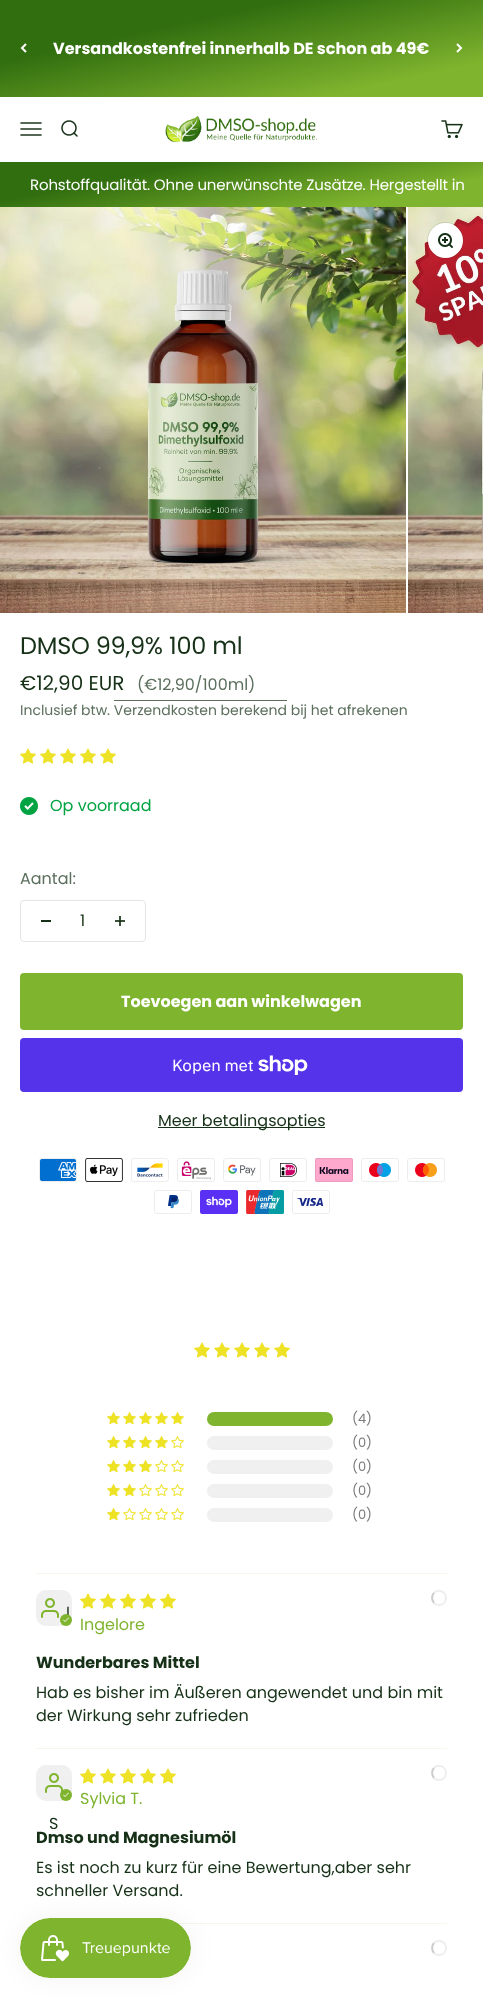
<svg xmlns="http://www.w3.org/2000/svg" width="483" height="1998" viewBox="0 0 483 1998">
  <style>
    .t1 { font: bold 16px Poppins; fill: #fff; }
    .t2 { font: 15px Poppins; letter-spacing: -0.15px; fill: #fff; }
    .t3 { font: 24px Poppins; letter-spacing: -0.25px; fill: #163117; }
    .t4 { font: 20px Poppins; fill: #163117; }
    .t5 { font: 16px Poppins; fill: #5c6f5d; }
    .t6 { font: 14px Poppins; fill: #5c6f5d; }
    .t7 { font: 16px Poppins; fill: #00a341; }
    .t8 { font: 16px Poppins; fill: #163117; }
    .t9 { font: 16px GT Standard; fill: #fff; }
    .t10 { font: 13px Poppins; fill: #7b7b7b; }
    .t11 { font: 16px Poppins; fill: #7fb42e; }
    .t12 { font: bold 16px Poppins; fill: #163117; }
  </style>
  <defs>
    <linearGradient id="g1" gradientUnits="userSpaceOnUse" x1="221" y1="-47" x2="262" y2="144"><stop offset="0.31" stop-color="#316e0f"/><stop offset="0.83" stop-color="#7fb42e"/></linearGradient>
    <linearGradient id="g2" gradientUnits="userSpaceOnUse" x1="228" y1="118" x2="255" y2="251"><stop offset="0.27" stop-color="#316e0f"/><stop offset="0.81" stop-color="#7fb42e"/></linearGradient>
  </defs>
  <rect width="100%" height="100%" fill="#fff"/>
  <rect x="115" y="920" width="10" height="2" fill="#39503a"/>
  <rect x="0" y="0" width="483" height="97" fill="url(#g1)"/>
  <path d="M26 44L22 48L26 52" fill="none" stroke="#fff" stroke-width="2"/>
  <text x="53" y="54" class="t1">Versandkostenfrei innerhalb DE schon ab 49€</text>
  <path d="M457 52L461 48L457 44" fill="none" stroke="#fff" stroke-width="2"/>
  <image x="20" y="122" width="22" height="14" href="images/1.png"/>
  <image x="61" y="120" width="17" height="17" href="images/2.png"/>
  <image x="165" y="115" width="152" height="28" href="images/3.png"/>
  <image x="441" y="120" width="22" height="19" href="images/4.png"/>
  <rect x="0" y="162" width="483" height="45" fill="url(#g2)"/>
  <text x="30" y="190" class="t2">Rohstoffqualität. Ohne unerwünschte Zusätze. Hergestellt in</text>
  <image x="0" y="207" width="406" height="406" href="images/5.png"/>
  <image x="408" y="207" width="75" height="406" href="images/6.png"/>
  <circle cx="445.5" cy="240.5" r="18" fill="none" stroke="#1631171f"/>
  <circle cx="445.5" cy="240.5" r="17.5" fill="#fff"/>
  <image x="438" y="233" width="15" height="15" href="images/7.png"/>
  <text x="20" y="654" class="t3">DMSO 99,9% 100 ml</text>
  <text x="20" y="690" class="t4">€12,90 EUR</text>
  <text x="137" y="690" class="t5">(€12,90/100ml)</text>
  <rect x="114" y="700" width="173" height="1" fill="#5c6f5d"/>
  <text x="20" y="715" class="t6">Inclusief btw. Verzendkosten berekend bij het afrekenen</text>
  <image x="20" y="748" width="16" height="16" href="images/8.png"/>
  <image x="40" y="748" width="16" height="16" href="images/8.png"/>
  <image x="60" y="748" width="16" height="16" href="images/8.png"/>
  <image x="80" y="748" width="16" height="16" href="images/8.png"/>
  <image x="100" y="748" width="16" height="16" href="images/8.png"/>
  <image x="20" y="797" width="18" height="18" href="images/9.png"/>
  <text x="50" y="811" class="t7">Op voorraad</text>
  <text x="20" y="884" class="t5">Aantal:</text>
  <rect x="20.5" y="900.5" width="125" height="41" rx="3.5" fill="none" stroke="#e3e6e3"/>
  <rect x="41" y="920" width="10" height="2" fill="#163117"/>
  <text x="80" y="926" class="t8">1</text>
  <rect x="119" y="916" width="2" height="10" fill="#39503a"/>
  <rect x="119" y="920" width="2" height="2" fill="#1b361c"/>
  <rect x="20" y="973" width="443" height="57" rx="4" fill="#7fb42e"/>
  <text x="121" y="1007" class="t1">Toevoegen aan winkelwagen</text>
  <rect x="20" y="1038" width="443" height="54" rx="4" fill="#5433eb"/>
  <text x="172" y="1071" class="t9">Kopen met</text>
  <image x="258" y="1055" width="50" height="20" href="images/10.png"/>
  <rect x="158" y="1127" width="167" height="1" fill="#163117"/>
  <text x="158" y="1126" class="t8">Meer betalingsopties</text>
  <image x="39" y="1158" width="38" height="24" href="images/11.png"/>
  <image x="85" y="1158" width="38" height="24" href="images/12.png"/>
  <image x="131" y="1158" width="38" height="24" href="images/13.png"/>
  <image x="177" y="1158" width="38" height="24" href="images/14.png"/>
  <image x="223" y="1158" width="38" height="24" href="images/15.png"/>
  <image x="269" y="1158" width="38" height="24" href="images/16.png"/>
  <image x="315" y="1158" width="38" height="24" href="images/17.png"/>
  <image x="361" y="1158" width="38" height="24" href="images/18.png"/>
  <image x="407" y="1158" width="38" height="24" href="images/19.png"/>
  <image x="154" y="1190" width="38" height="24" href="images/20.png"/>
  <image x="200" y="1190" width="38" height="24" href="images/21.png"/>
  <image x="246" y="1190" width="38" height="24" href="images/22.png"/>
  <image x="292" y="1190" width="38" height="24" href="images/23.png"/>
  <image x="194" y="1342" width="16" height="16" href="images/8.png"/>
  <image x="214" y="1342" width="16" height="16" href="images/8.png"/>
  <image x="234" y="1342" width="16" height="16" href="images/8.png"/>
  <image x="254" y="1342" width="16" height="16" href="images/8.png"/>
  <image x="274" y="1342" width="16" height="16" href="images/8.png"/>
  <image x="107" y="1412" width="13" height="13" href="images/24.png"/>
  <image x="123" y="1412" width="13" height="13" href="images/24.png"/>
  <image x="139" y="1412" width="13" height="13" href="images/24.png"/>
  <image x="155" y="1412" width="13" height="13" href="images/24.png"/>
  <image x="171" y="1412" width="13" height="13" href="images/24.png"/>
  <rect x="207" y="1412" width="126" height="14" rx="7" fill="#7fb42e"/>
  <text x="352" y="1423" class="t10">(4)</text>
  <image x="107" y="1436" width="13" height="13" href="images/24.png"/>
  <image x="123" y="1436" width="13" height="13" href="images/24.png"/>
  <image x="139" y="1436" width="13" height="13" href="images/24.png"/>
  <image x="155" y="1436" width="13" height="13" href="images/24.png"/>
  <image x="171" y="1436" width="13" height="13" href="images/25.png"/>
  <rect x="207" y="1436" width="126" height="14" rx="7" fill="#f0f0f0"/>
  <text x="352" y="1447" class="t10">(0)</text>
  <image x="107" y="1460" width="13" height="13" href="images/24.png"/>
  <image x="123" y="1460" width="13" height="13" href="images/24.png"/>
  <image x="139" y="1460" width="13" height="13" href="images/24.png"/>
  <image x="155" y="1460" width="13" height="13" href="images/25.png"/>
  <image x="171" y="1460" width="13" height="13" href="images/25.png"/>
  <rect x="207" y="1460" width="126" height="14" rx="7" fill="#f0f0f0"/>
  <text x="352" y="1471" class="t10">(0)</text>
  <image x="107" y="1484" width="13" height="13" href="images/24.png"/>
  <image x="123" y="1484" width="13" height="13" href="images/24.png"/>
  <image x="139" y="1484" width="13" height="13" href="images/25.png"/>
  <image x="155" y="1484" width="13" height="13" href="images/25.png"/>
  <image x="171" y="1484" width="13" height="13" href="images/25.png"/>
  <rect x="207" y="1484" width="126" height="14" rx="7" fill="#f0f0f0"/>
  <text x="352" y="1495" class="t10">(0)</text>
  <image x="107" y="1508" width="13" height="13" href="images/24.png"/>
  <image x="123" y="1508" width="13" height="13" href="images/25.png"/>
  <image x="139" y="1508" width="13" height="13" href="images/25.png"/>
  <image x="155" y="1508" width="13" height="13" href="images/25.png"/>
  <image x="171" y="1508" width="13" height="13" href="images/25.png"/>
  <rect x="207" y="1508" width="126" height="14" rx="7" fill="#f0f0f0"/>
  <text x="352" y="1519" class="t10">(0)</text>
  <rect x="36" y="1573" width="411" height="1" fill="#f2f8ea"/>
  <image x="80" y="1593" width="16" height="16" href="images/8.png"/>
  <image x="100" y="1593" width="16" height="16" href="images/8.png"/>
  <image x="120" y="1593" width="16" height="16" href="images/8.png"/>
  <image x="140" y="1593" width="16" height="16" href="images/8.png"/>
  <image x="160" y="1593" width="16" height="16" href="images/8.png"/>
  <path d="M434 1593C435.5 1591.5 438 1590.5 440.5 1591C448.5 1593 447.5 1605 439 1605C437 1605 435.5 1604.5 434 1603" fill="none" stroke="#eee" stroke-width="2"/>
  <path d="M434 1603C431.5 1600.5 431.5 1595.5 434 1593" fill="none" stroke="#ccc" stroke-width="2"/>
  <rect x="36" y="1590" width="36" height="36" rx="10" fill="#f0f0f0"/>
  <image x="41" y="1598" width="18" height="20" href="images/26.png"/>
  <text x="66" y="1618" class="t8">I</text>
  <circle cx="66" cy="1620" r="6" fill="#7fb42e"/>
  <image x="63" y="1617" width="6" height="5" href="images/27.png"/>
  <text x="80" y="1630" class="t11">Ingelore</text>
  <text x="36" y="1668" class="t12">Wunderbares Mittel</text>
  <text x="36" y="1698" class="t8">Hab es bisher im Äußeren angewendet und bin mit</text>
  <text x="36" y="1721" class="t8">der Wirkung sehr zufrieden</text>
  <rect x="36" y="1748" width="411" height="1" fill="#f2f8ea"/>
  <image x="80" y="1768" width="16" height="16" href="images/8.png"/>
  <image x="100" y="1768" width="16" height="16" href="images/8.png"/>
  <image x="120" y="1768" width="16" height="16" href="images/8.png"/>
  <image x="140" y="1768" width="16" height="16" href="images/8.png"/>
  <image x="160" y="1768" width="16" height="16" href="images/8.png"/>
  <path d="M434 1768C435.5 1766.5 438 1765.5 440.5 1766C448.5 1768 447.5 1780 439 1780C437 1780 435.5 1779.5 434 1778" fill="none" stroke="#eee" stroke-width="2"/>
  <path d="M434 1778C431.5 1775.5 431.5 1770.5 434 1768" fill="none" stroke="#ccc" stroke-width="2"/>
  <text x="80" y="1804" class="t11">Sylvia T.</text>
  <rect x="36" y="1765" width="36" height="36" rx="10" fill="#f0f0f0"/>
  <image x="45" y="1773" width="18" height="20" href="images/26.png"/>
  <circle cx="66" cy="1795" r="6" fill="#7fb42e"/>
  <image x="63" y="1792" width="6" height="5" href="images/27.png"/>
  <text x="49" y="1829" class="t8">S</text>
  <text x="36" y="1843" class="t12">Dmso und Magnesiumöl</text>
  <text x="36" y="1873" class="t8">Es ist noch zu kurz für eine Bewertung,aber sehr</text>
  <text x="36" y="1896" class="t8">schneller Versand.</text>
  <rect x="177" y="1923" width="270" height="1" fill="#f2f8ea"/>
  <path d="M434 1943C435.5 1941.5 438 1940.5 440.5 1941C448.5 1943 447.5 1955 439 1955C437 1955 435.5 1954.5 434 1953" fill="none" stroke="#eee" stroke-width="2"/>
  <path d="M434 1953C431.5 1950.5 431.5 1945.5 434 1943" fill="none" stroke="#ccc" stroke-width="2"/>
  <rect x="20" y="1918" width="171" height="60" rx="30" fill="#0000000d" filter="blur(12.5px)"/>
  <image x="20" y="1918" width="171" height="60" href="images/28.png"/>
</svg>
